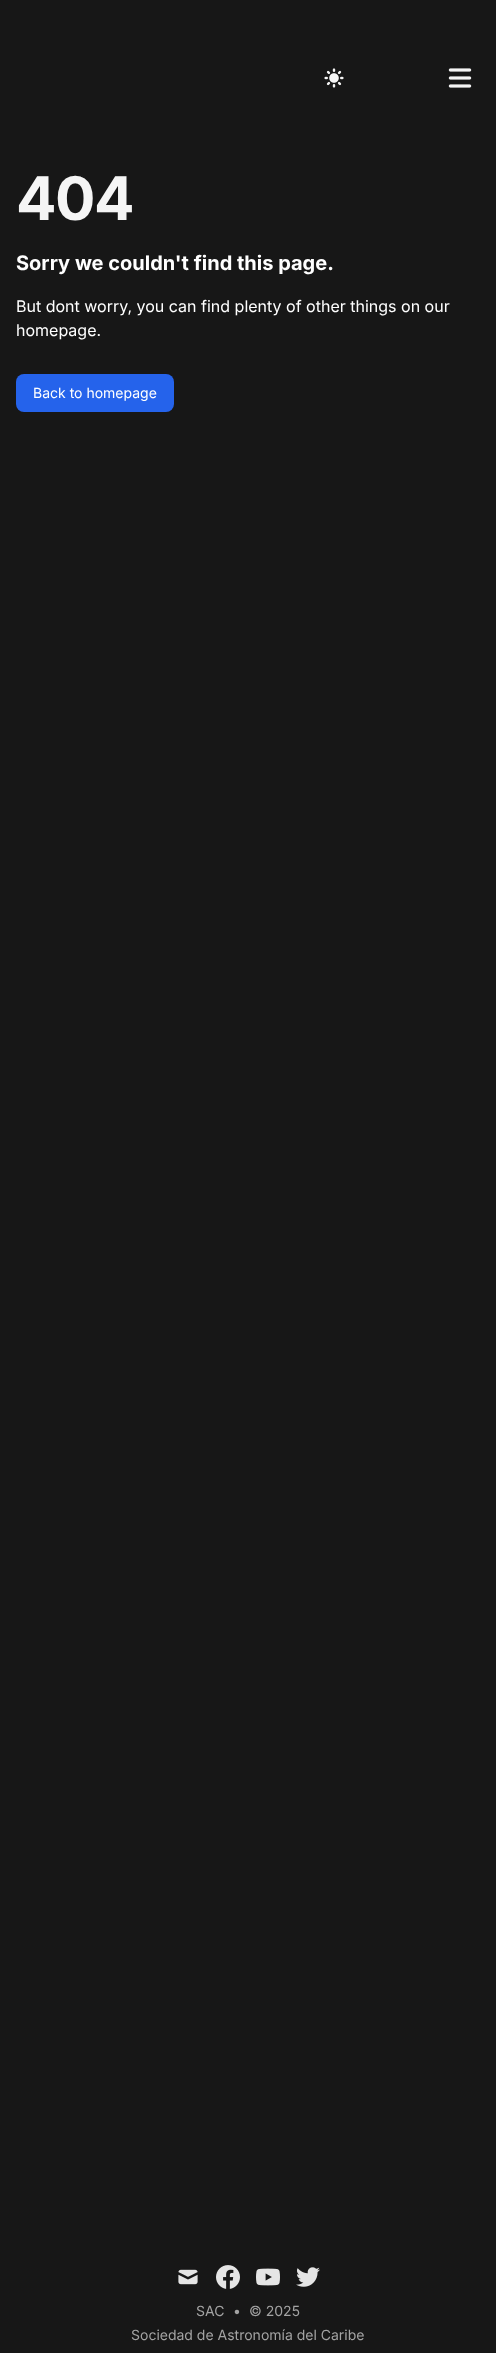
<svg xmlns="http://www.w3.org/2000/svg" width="496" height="2353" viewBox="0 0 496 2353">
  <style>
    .t1 { font: bold 60px Inter; letter-spacing: -1.5px; fill: #f5f5f5; }
    .t2 { font: bold 20px Inter; fill: #fff; }
    .t3 { font: 16px Inter; fill: #fff; }
    .t4 { font: 14px Inter; fill: #fff; }
    .t5 { font: 14px Inter; fill: #a3a3a3; }
  </style>
  <rect width="100%" height="100%" fill="#171717"/>
  <image x="324" y="68" width="20" height="20" href="images/1.png"/>
  <image x="448" y="68" width="24" height="20" href="images/2.png"/>
  <text x="16" y="220" class="t1">404</text>
  <text x="16" y="270" class="t2">Sorry we couldn't find this page.</text>
  <text x="16" y="312" class="t3">But dont worry, you can find plenty of other things on our</text>
  <text x="16" y="336" class="t3">homepage.</text>
  <rect x="16" y="374" width="158" height="38" rx="8" fill="#2563eb"/>
  <text x="33" y="398" class="t4">Back to homepage</text>
  <image x="178" y="2269" width="20" height="16" href="images/3.png"/>
  <image x="216" y="2265" width="24" height="24" href="images/4.png"/>
  <image x="256" y="2268" width="24" height="18" href="images/5.png"/>
  <image x="296" y="2267" width="24" height="20" href="images/6.png"/>
  <text x="196" y="2316" class="t5">SAC</text>
  <text x="233" y="2316" class="t5">•</text>
  <text x="249" y="2316" class="t5">© 2025</text>
  <text x="131" y="2340" class="t5">Sociedad de Astronomía del Caribe</text>
</svg>
